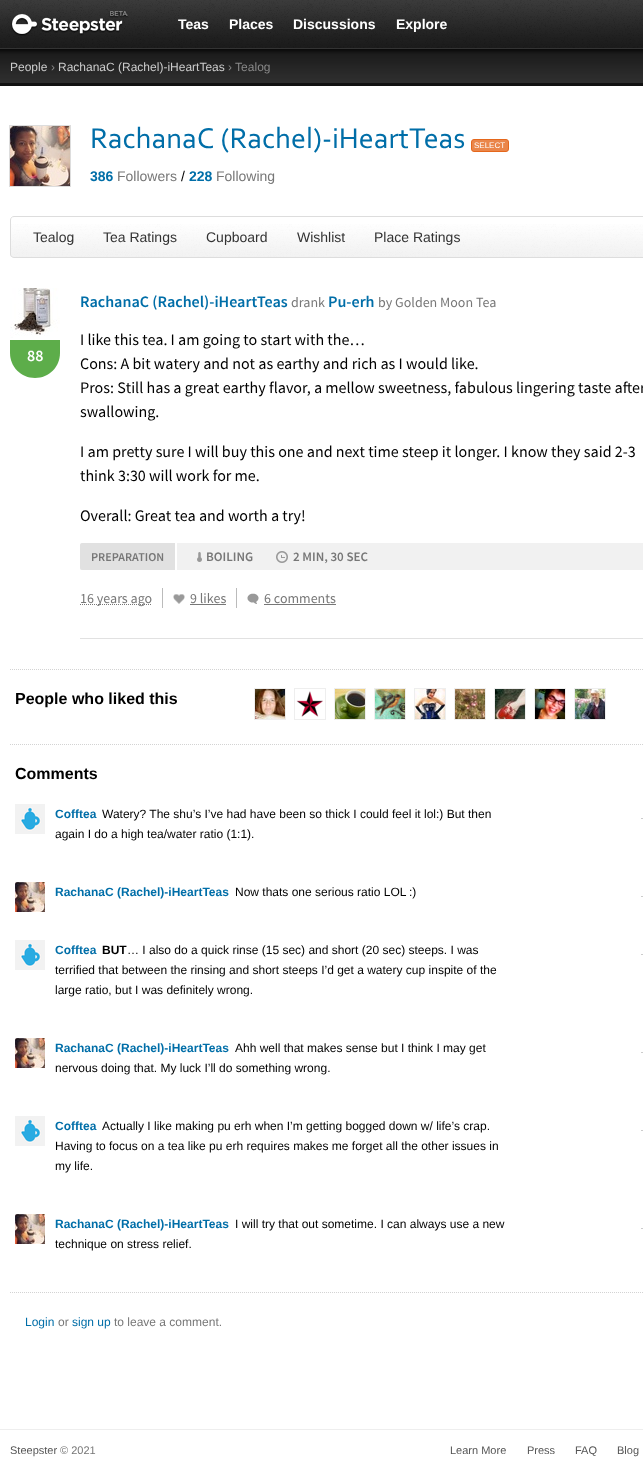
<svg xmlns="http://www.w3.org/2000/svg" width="643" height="1460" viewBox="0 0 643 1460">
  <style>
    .t1 { font: bold 14px Liberation Sans; fill: #fff; }
    .t2 { font: 12px Liberation Sans; fill: #ccc; }
    .t3 { font: 12px Liberation Sans; fill: #888; }
    .t4 { font: 30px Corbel; fill: #006ea8; }
    .t5 { font: 8px Liberation Sans; fill: #fff; }
    .t6 { font: bold 14px Liberation Sans; fill: #006ea8; }
    .t7 { font: 14px Liberation Sans; fill: #777; }
    .t8 { font: 14px Liberation Sans; fill: #000; }
    .t9 { font: 14px Liberation Sans; fill: #333; }
    .t10 { font: 600 16px Source Sans Pro; fill: #006ea8; }
    .t11 { font: 14px Source Sans Pro; fill: #777; }
    .t12 { font: 600 16px Source Sans Pro; fill: #fff; }
    .t13 { font: 16px Source Sans Pro; fill: #000; }
    .t14 { font: 600 12px Source Sans Pro; fill: #777; }
    .t15 { font: 600 13px Source Sans Pro; fill: #777; }
    .t16 { font: bold 16px Liberation Sans; fill: #000; }
    .t17 { font: bold 12px Liberation Sans; fill: #006ea8; }
    .t18 { font: 12px Liberation Sans; fill: #000; }
    .t19 { font: bold 12px Liberation Sans; fill: #000; }
    .t20 { font: 12px Liberation Sans; fill: #006ea8; }
    .t21 { font: 12px Liberation Sans; fill: #777; }
    .t22 { font: 11px Liberation Sans; fill: #555; }
    .t23 { font: 11px Liberation Sans; fill: #777; }
  </style>
  <rect width="100%" height="100%" fill="#fff"/>
  <image x="0" y="0" width="643" height="48" href="images/1.png"/>
  <image x="11" y="11" width="117" height="25" href="images/2.png"/>
  <text x="178" y="29" class="t1">Teas</text>
  <text x="229" y="29" class="t1">Places</text>
  <text x="293" y="29" class="t1">Discussions</text>
  <text x="396" y="29" class="t1">Explore</text>
  <rect x="0" y="83" width="643" height="3" fill="#111"/>
  <image x="0" y="49" width="643" height="34" href="images/3.png"/>
  <rect x="0" y="48" width="643" height="1" fill="#333"/>
  <text x="10" y="71" class="t2">People</text>
  <text x="51" y="71" class="t3">›</text>
  <text x="58" y="71" class="t2">RachanaC (Rachel)-iHeartTeas</text>
  <text x="228" y="71" class="t3">› Tealog</text>
  <image x="10" y="126" width="60" height="60" href="images/4.png"/>
  <rect x="9.5" y="125.5" width="61" height="61" fill="none" stroke="#ddd"/>
  <text x="90" y="148" class="t4">RachanaC (Rachel)-iHeartTeas</text>
  <rect x="471.5" y="139.5" width="37" height="12" rx="2.5" fill="#ea864a" stroke="#e5671c"/>
  <text x="474" y="148" class="t5">SELECT</text>
  <text x="90" y="181" class="t6">386</text>
  <text x="117" y="181" class="t7">Followers</text>
  <text x="181" y="181" class="t8">/</text>
  <text x="189" y="181" class="t6">228</text>
  <text x="216" y="181" class="t7">Following</text>
  <image x="10" y="224" width="633" height="33" href="images/5.png"/>
  <path d="M14 216.5H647.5V257.5H14C12 257.5 10.5 256 10.5 254V220C10.5 218 12 216.5 14 216.5Z" fill="none" stroke="#ddd"/>
  <text x="33" y="242" class="t9">Tealog</text>
  <text x="103" y="242" class="t9">Tea Ratings</text>
  <text x="206" y="242" class="t9">Cupboard</text>
  <text x="297" y="242" class="t9">Wishlist</text>
  <text x="374" y="242" class="t9">Place Ratings</text>
  <text x="80" y="307" class="t10">RachanaC (Rachel)-iHeartTeas</text>
  <text x="291" y="307" class="t11">drank</text>
  <text x="328" y="307" class="t10">Pu-erh</text>
  <text x="378" y="307" class="t11">by Golden Moon Tea</text>
  <path d="M10 323H60V353C60 367 49 378 35 378C21 378 10 367 10 353Z" fill="#5dad4a"/>
  <rect x="9" y="287" width="52" height="52" fill="none" stroke="#fff" stroke-width="2"/>
  <image x="10" y="288" width="50" height="50" href="images/6.png"/>
  <text x="27" y="361" class="t12">88</text>
  <rect x="80" y="638" width="563" height="1" fill="#e1e1e1"/>
  <text x="80" y="345" class="t13">I like this tea. I am going to start with the…</text>
  <text x="80" y="369" class="t13">Cons: A bit watery and not as earthy and rich as I would like.</text>
  <text x="80" y="393" class="t13">Pros: Still has a great earthy flavor, a mellow sweetness, fabulous lingering taste after</text>
  <text x="80" y="417" class="t13">swallowing.</text>
  <text x="80" y="457" class="t13">I am pretty sure I will buy this one and next time steep it longer. I know they said 2-3</text>
  <text x="80" y="481" class="t13">think 3:30 will work for me.</text>
  <text x="80" y="521" class="t13">Overall: Great tea and worth a try!</text>
  <rect x="80" y="543" width="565" height="27" rx="2" fill="#f1f1f1"/>
  <path d="M82 543H177V570H82C81 570 80 569 80 568V545C80 544 81 543 82 543Z" fill="#e1e1e1"/>
  <rect x="175" y="543" width="2" height="27" fill="#fff"/>
  <text x="91" y="561" class="t14">PREPARATION</text>
  <image x="197" y="552" width="5" height="10" href="images/7.png"/>
  <text x="206" y="561" class="t15">BOILING</text>
  <image x="276" y="551" width="12" height="12" href="images/8.png"/>
  <text x="293" y="561" class="t15">2 MIN, 30 SEC</text>
  <rect x="162" y="588" width="1" height="20" fill="#bbb"/>
  <path d="M80 604.5H152" fill="none" stroke="#777" stroke-dasharray="1 1"/>
  <text x="80" y="603" class="t11">16 years ago</text>
  <image x="173" y="594" width="12" height="10" href="images/9.png"/>
  <rect x="236" y="588" width="1" height="20" fill="#bbb"/>
  <text x="190" y="603" class="t11">9 likes</text>
  <rect x="190" y="604" width="36" height="1" fill="#777"/>
  <image x="247" y="593" width="12" height="11" href="images/10.png"/>
  <text x="264" y="603" class="t11">6 comments</text>
  <rect x="264" y="604" width="72" height="1" fill="#777"/>
  <path d="M10 669.5H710" fill="none" stroke="#d3d3d3" stroke-dasharray="1 1"/>
  <text x="15" y="704" class="t16">People who liked this</text>
  <image x="255" y="689" width="30" height="30" href="images/11.png"/>
  <rect x="254.5" y="688.5" width="31" height="31" fill="none" stroke="#eee"/>
  <image x="296" y="691" width="27" height="26" href="images/12.png"/>
  <rect x="294.5" y="688.5" width="31" height="31" fill="none" stroke="#eee"/>
  <image x="335" y="689" width="30" height="30" href="images/13.png"/>
  <rect x="334.5" y="688.5" width="31" height="31" fill="none" stroke="#eee"/>
  <image x="375" y="689" width="30" height="30" href="images/14.png"/>
  <rect x="374.5" y="688.5" width="31" height="31" fill="none" stroke="#eee"/>
  <image x="415" y="689" width="30" height="30" href="images/15.png"/>
  <rect x="414.5" y="688.5" width="31" height="31" fill="none" stroke="#eee"/>
  <image x="455" y="689" width="30" height="30" href="images/16.png"/>
  <rect x="454.5" y="688.5" width="31" height="31" fill="none" stroke="#eee"/>
  <image x="495" y="689" width="30" height="30" href="images/17.png"/>
  <rect x="494.5" y="688.5" width="31" height="31" fill="none" stroke="#eee"/>
  <image x="535" y="689" width="30" height="30" href="images/18.png"/>
  <rect x="534.5" y="688.5" width="31" height="31" fill="none" stroke="#eee"/>
  <image x="575" y="689" width="30" height="30" href="images/19.png"/>
  <rect x="574.5" y="688.5" width="31" height="31" fill="none" stroke="#eee"/>
  <path d="M10 744.5H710" fill="none" stroke="#d3d3d3" stroke-dasharray="1 1"/>
  <text x="15" y="779" class="t16">Comments</text>
  <image x="15" y="804" width="30" height="30" href="images/20.png"/>
  <text x="55" y="818" class="t17">Cofftea</text>
  <path d="M641.5 818.5H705" fill="none" stroke="#999" stroke-dasharray="1 1"/>
  <text x="102" y="818" class="t18">Watery? The shu’s I’ve had have been so thick I could feel it lol:) But then</text>
  <text x="55" y="838" class="t18">again I do a high tea/water ratio (1:1).</text>
  <image x="15" y="882" width="30" height="30" href="images/21.png"/>
  <text x="55" y="896" class="t17">RachanaC (Rachel)-iHeartTeas</text>
  <path d="M641.5 896.5H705" fill="none" stroke="#999" stroke-dasharray="1 1"/>
  <text x="235" y="896" class="t18">Now thats one serious ratio LOL</text>
  <text x="409" y="896" class="t18">:)</text>
  <image x="15" y="940" width="30" height="30" href="images/20.png"/>
  <text x="55" y="954" class="t17">Cofftea</text>
  <path d="M641.5 954.5H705" fill="none" stroke="#999" stroke-dasharray="1 1"/>
  <text x="102" y="954" class="t19">BUT</text>
  <text x="127" y="954" class="t18">… I also do a quick rinse (15 sec) and short (20 sec) steeps. I was</text>
  <text x="55" y="974" class="t18">terrified that between the rinsing and short steeps I’d get a watery cup inspite of the</text>
  <text x="55" y="994" class="t18">large ratio, but I was definitely wrong.</text>
  <image x="15" y="1038" width="30" height="30" href="images/21.png"/>
  <text x="55" y="1052" class="t17">RachanaC (Rachel)-iHeartTeas</text>
  <path d="M641.5 1052.5H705" fill="none" stroke="#999" stroke-dasharray="1 1"/>
  <text x="235" y="1052" class="t18">Ahh well that makes sense but I think I may get</text>
  <text x="55" y="1072" class="t18">nervous doing that. My luck I’ll do something wrong.</text>
  <image x="15" y="1116" width="30" height="30" href="images/20.png"/>
  <text x="55" y="1130" class="t17">Cofftea</text>
  <path d="M641.5 1130.5H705" fill="none" stroke="#999" stroke-dasharray="1 1"/>
  <text x="102" y="1130" class="t18">Actually I like making pu erh when I’m getting bogged down w/ life’s crap.</text>
  <text x="55" y="1150" class="t18">Having to focus on a tea like pu erh requires makes me forget all the other issues in</text>
  <text x="55" y="1170" class="t18">my life.</text>
  <image x="15" y="1214" width="30" height="30" href="images/21.png"/>
  <text x="55" y="1228" class="t17">RachanaC (Rachel)-iHeartTeas</text>
  <path d="M641.5 1228.5H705" fill="none" stroke="#999" stroke-dasharray="1 1"/>
  <text x="235" y="1228" class="t18">I will try that out sometime. I can always use a new</text>
  <text x="55" y="1248" class="t18">technique on stress relief.</text>
  <path d="M10 1292.5H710" fill="none" stroke="#d3d3d3" stroke-dasharray="1 1"/>
  <text x="25" y="1326" class="t20">Login</text>
  <text x="58" y="1326" class="t21">or</text>
  <text x="72" y="1326" class="t20">sign up</text>
  <text x="114" y="1326" class="t21">to leave a comment.</text>
  <rect x="0" y="1429" width="643" height="1" fill="#eee"/>
  <text x="10" y="1454" class="t22">Steepster</text>
  <text x="60" y="1454" class="t23">© 2021</text>
  <text x="450" y="1454" class="t22">Learn More</text>
  <text x="527" y="1454" class="t22">Press</text>
  <text x="575" y="1454" class="t22">FAQ</text>
  <text x="617" y="1454" class="t22">Blog</text>
</svg>
